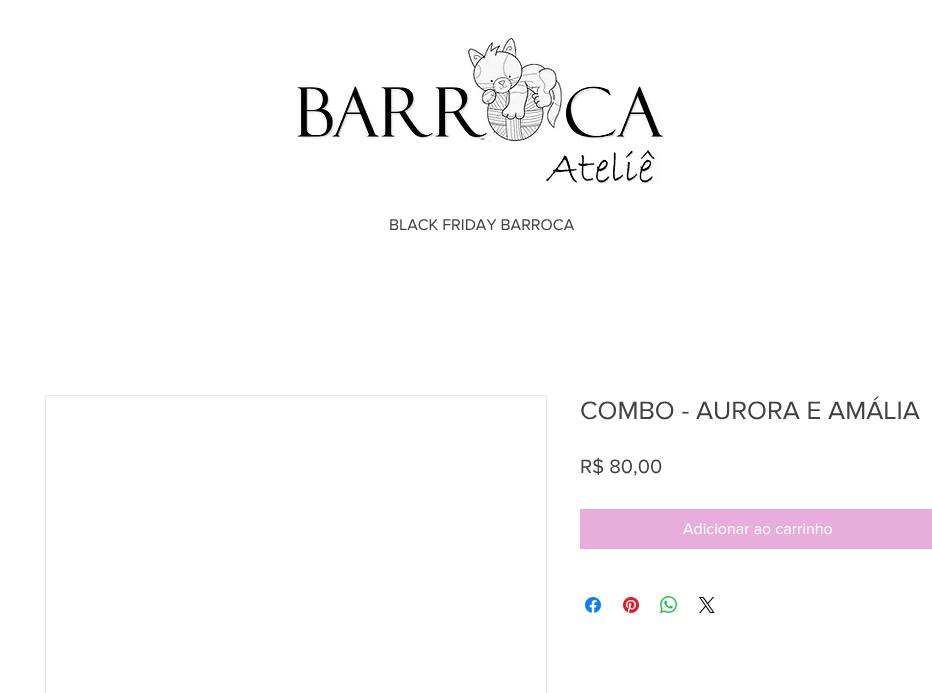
<svg xmlns="http://www.w3.org/2000/svg" width="932" height="693" viewBox="0 0 932 693">
  <style>
    .t1 { font: 16px 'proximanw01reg'; fill: #414141; }
    .t2 { font: 26px 'proximanw01reg'; fill: #414141; }
    .t3 { font: 20px 'proximanw01reg'; fill: #414141; }
    .t4 { font: 16px 'proximanw01reg'; fill: #fff; }
  </style>
  <rect width="100%" height="100%" fill="#fff"/>
  <image x="297" y="36" width="368" height="148" href="images/1.png"/>
  <text x="389" y="230" class="t1">BLACK FRIDAY BARROCA</text>
  <rect x="45.5" y="395.5" width="501" height="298" fill="none" stroke="#e8e6e6"/>
  <text x="580" y="419" class="t2">COMBO - AURORA E AMÁLIA</text>
  <text x="580" y="473" class="t3">R$ 80,00</text>
  <rect x="580" y="509" width="352" height="40" fill="#e8aedb"/>
  <text x="683" y="534" class="t4">Adicionar ao carrinho</text>
  <image x="585" y="597" width="16" height="16" href="images/2.png"/>
  <image x="623" y="597" width="16" height="16" href="images/3.png"/>
  <image x="660" y="596" width="17" height="17" href="images/4.png"/>
  <image x="699" y="597" width="16" height="16" href="images/5.png"/>
</svg>
